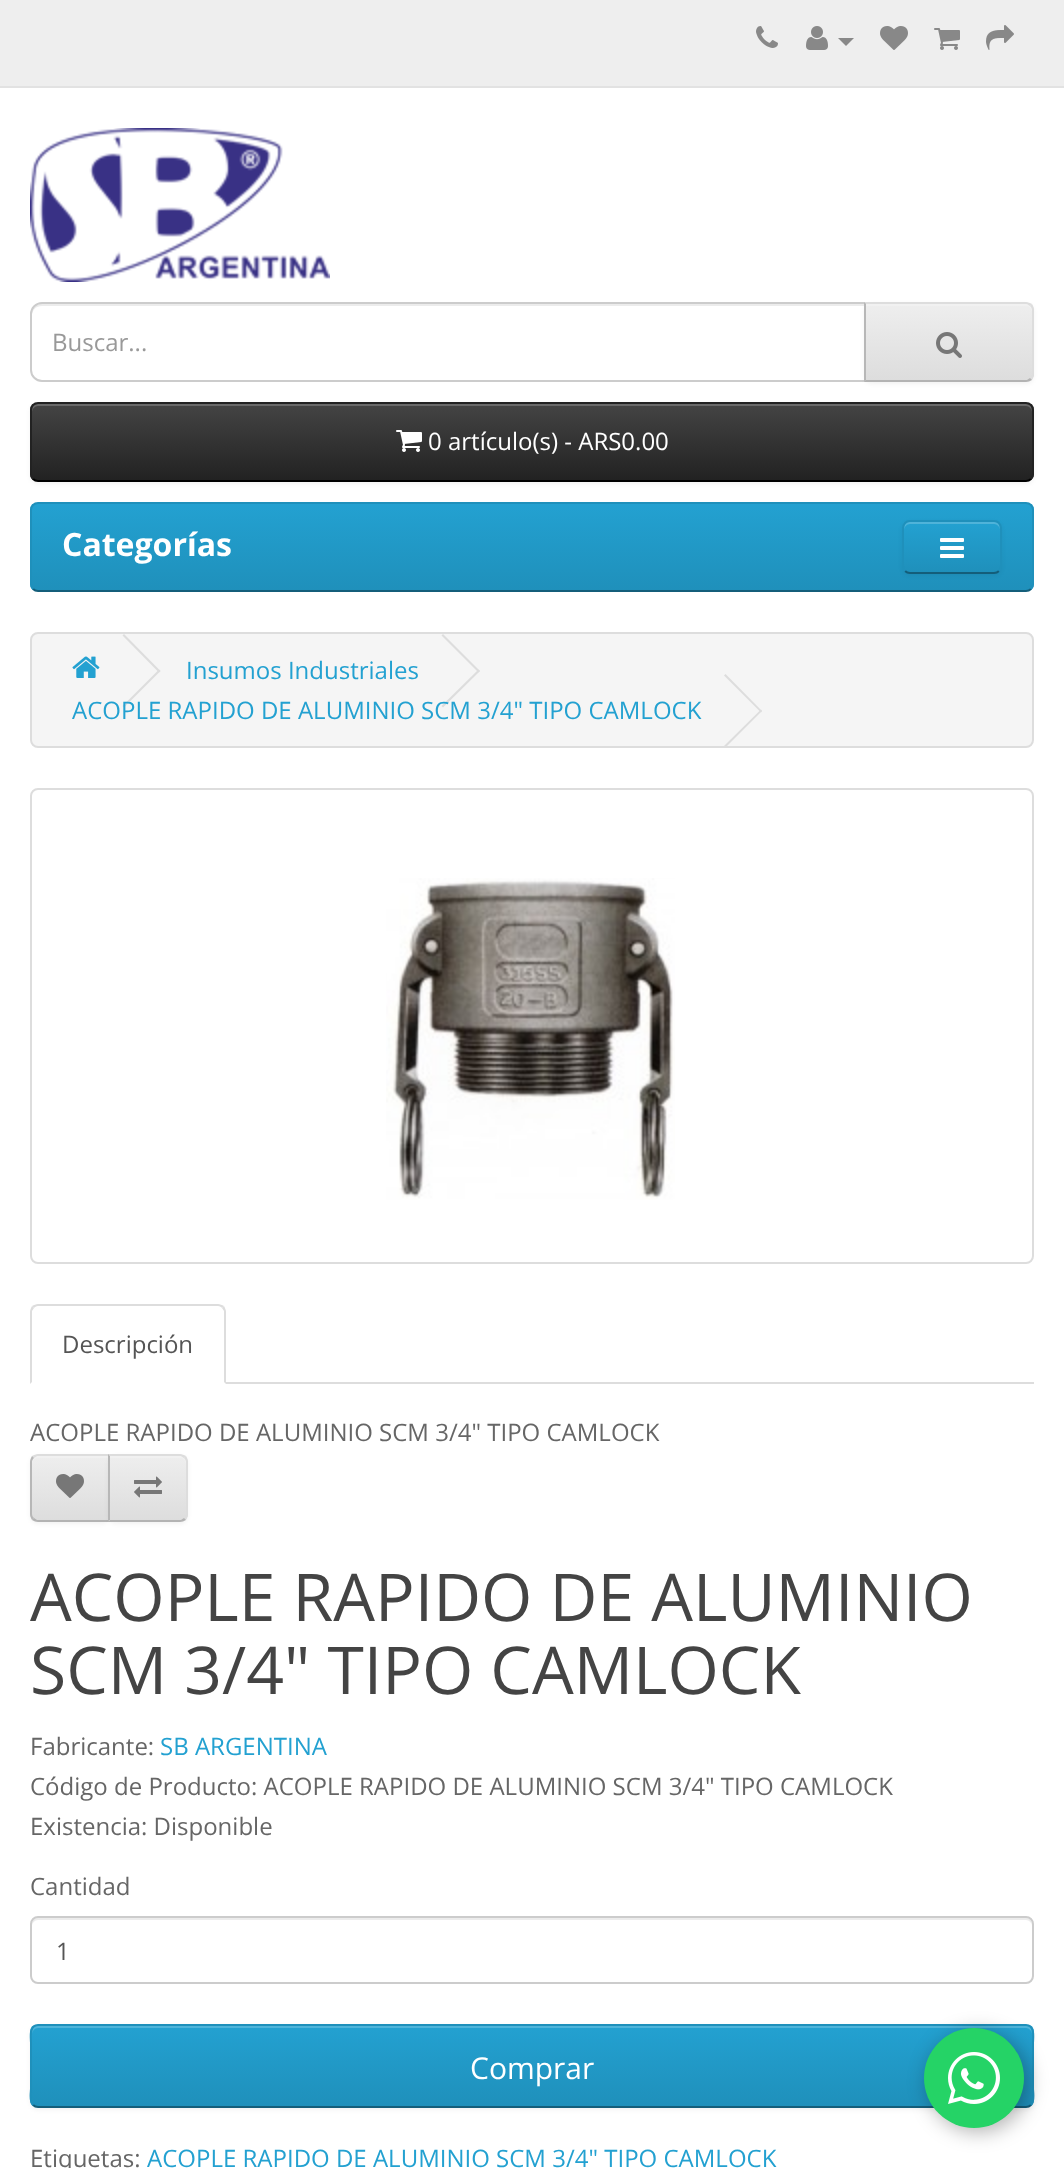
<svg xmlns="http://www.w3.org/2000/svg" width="1064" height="2168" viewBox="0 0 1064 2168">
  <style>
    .t1 { font: 24px Open Sans; fill: #999; }
    .t2 { font: 24px Open Sans; fill: #fff; }
    .t3 { font: bold 32px Open Sans; fill: #fff; }
    .t4 { font: 24px Open Sans; fill: #23a1d1; }
    .t5 { font: 24px Open Sans; fill: #555; }
    .t6 { font: 24px Open Sans; fill: #666; }
    .t7 { font: 66px Open Sans; fill: #444; }
    .t8 { font: 30px Open Sans; fill: #fff; }
  </style>
  <defs>
    <clipPath id="clip1"><path d="M864 302H1026C1030.5 302 1034 305.5 1034 310V374C1034 378.5 1030.5 382 1026 382H864Z"/></clipPath>
    <linearGradient id="g1" gradientUnits="userSpaceOnUse" x1="949" y1="304" x2="949" y2="380"><stop offset="0" stop-color="#eee"/><stop offset="1" stop-color="#ddd"/></linearGradient>
    <clipPath id="clip2"><rect x="30" y="402" width="1004" height="80" rx="8"/></clipPath>
    <linearGradient id="g2" gradientUnits="userSpaceOnUse" x1="532" y1="404" x2="532" y2="480"><stop offset="0" stop-color="#444"/><stop offset="1" stop-color="#222"/></linearGradient>
    <clipPath id="clip3"><rect x="30" y="502" width="1004" height="90" rx="8"/></clipPath>
    <linearGradient id="g3" gradientUnits="userSpaceOnUse" x1="532" y1="504" x2="532" y2="590"><stop offset="0" stop-color="#23a1d1"/><stop offset="1" stop-color="#1f90bb"/></linearGradient>
    <clipPath id="clip4"><rect x="902" y="520" width="100" height="54" rx="8"/></clipPath>
    <linearGradient id="g4" gradientUnits="userSpaceOnUse" x1="952" y1="522" x2="952" y2="572"><stop offset="0" stop-color="#23a1d1"/><stop offset="1" stop-color="#1f90bb"/></linearGradient>
    <clipPath id="clip5"><path d="M38 1454H110V1522H38C33.5 1522 30 1518.5 30 1514V1462C30 1457.5 33.5 1454 38 1454Z"/></clipPath>
    <linearGradient id="g5" gradientUnits="userSpaceOnUse" x1="70" y1="1456" x2="70" y2="1520"><stop offset="0" stop-color="#eee"/><stop offset="1" stop-color="#ddd"/></linearGradient>
    <clipPath id="clip6"><path d="M108 1454H180C184.5 1454 188 1457.5 188 1462V1514C188 1518.5 184.5 1522 180 1522H108Z"/></clipPath>
    <linearGradient id="g6" gradientUnits="userSpaceOnUse" x1="148" y1="1456" x2="148" y2="1520"><stop offset="0" stop-color="#eee"/><stop offset="1" stop-color="#ddd"/></linearGradient>
    <clipPath id="clip7"><rect x="30" y="2024" width="1004" height="84" rx="8"/></clipPath>
    <linearGradient id="g7" gradientUnits="userSpaceOnUse" x1="532" y1="2026" x2="532" y2="2106"><stop offset="0" stop-color="#23a1d1"/><stop offset="1" stop-color="#1f90bb"/></linearGradient>
  </defs>
  <rect width="100%" height="100%" fill="#fff"/>
  <rect x="0" y="0" width="1064" height="86" fill="#eee"/>
  <rect x="0" y="86" width="1064" height="2" fill="#e2e2e2"/>
  <image x="756" y="26" width="22" height="22" href="images/1.png"/>
  <image x="806" y="26" width="22" height="24" href="images/2.png"/>
  <path d="M838 38H854L846 46Z" fill="#888"/>
  <image x="880" y="26" width="28" height="24" href="images/3.png"/>
  <image x="934" y="28" width="26" height="22" href="images/4.png"/>
  <image x="986" y="25" width="28" height="25" href="images/5.png"/>
  <image x="30" y="128" width="300" height="154" href="images/6.png"/>
  <path d="M42 306H864V304H42C35 304 32 310 32 316C32 310 36 306 42 306Z" fill="#ececec"/>
  <path d="M42 303H865V381H42C36 381 31 376 31 370V314C31 308 36 303 42 303Z" fill="none" stroke="#ccc" stroke-width="2"/>
  <text x="52" y="351" class="t1">Buscar...</text>
  <rect x="864" y="304" width="170" height="80" rx="8" fill="#0000000d" filter="blur(2px)"/>
  <g clip-path="url(#clip1)">
    <rect x="866" y="304" width="168" height="76" fill="url(#g1)"/>
  </g>
  <path d="M866 306H1026C1029 306 1032 309 1032 312V310C1032 307 1029 304 1026 304H866Z" fill="#f1f1f1"/>
  <path d="M864 302L866 304H1027L1030 306L1032 304C1030 303 1028 302 1026 302Z" fill="#ddd"/>
  <path d="M1034 374V310C1034 308 1033 306 1032 304L1030 306C1031 307 1032 308 1032 310V374C1032 376 1031 377 1030 378L1032 380C1033 378 1034 376 1034 374Z" fill="#ddd"/>
  <path d="M1026 382C1028 382 1030 381 1032 380L1030 378L1027 380H866L864 382Z" fill="#b3b3b3"/>
  <path d="M864 302V382L866 380V304Z" fill="#b7b7b7"/>
  <image x="936" y="332" width="26" height="26" href="images/7.png"/>
  <rect x="30" y="404" width="1004" height="80" rx="8" fill="#0000000d" filter="blur(2px)"/>
  <g clip-path="url(#clip2)">
    <rect x="30" y="404" width="1004" height="76" fill="url(#g2)"/>
  </g>
  <path d="M38 406H1026C1029 406 1032 409 1032 412C1032 408 1031 404 1026 404H38C33 404 32 408 32 412C32 409 35 406 38 406Z" fill="#696969"/>
  <path d="M1031 479C1029.5 480.5 1028 481 1026 481H38C36 481 34.5 480.5 33 479" fill="none" stroke="#000" stroke-width="2"/>
  <path d="M33 479C31.5 477.5 31 476 31 474V410C31 408 31.5 406.5 33 405C34.5 403.5 36 403 38 403H1026C1028 403 1029.5 403.5 1031 405C1032.5 406.5 1033 408 1033 410V474C1033 476 1032.5 477.5 1031 479" fill="none" stroke="#222" stroke-width="2"/>
  <image x="396" y="430" width="26" height="22" href="images/8.png"/>
  <text x="428" y="450" class="t2">0 artículo(s) - ARS0.00</text>
  <g clip-path="url(#clip3)">
    <rect x="30" y="504" width="1004" height="86" fill="url(#g3)"/>
  </g>
  <path d="M1031 589C1029.5 590.5 1028 591 1026 591H38C36 591 34.5 590.5 33 589" fill="none" stroke="#145e7a" stroke-width="2"/>
  <path d="M33 589C31.5 587.5 31 586 31 584V510C31 508 31.5 506.5 33 505C34.5 503.5 36 503 38 503H1026C1028 503 1029.5 503.5 1031 505C1032.5 506.5 1033 508 1033 510V584C1033 586 1032.5 587.5 1031 589" fill="none" stroke="#1f90bb" stroke-width="2"/>
  <text x="62" y="556" class="t3">Categorías</text>
  <rect x="902" y="522" width="100" height="54" rx="8" fill="#0000000d" filter="blur(2px)"/>
  <g clip-path="url(#clip4)">
    <rect x="902" y="522" width="100" height="50" fill="url(#g4)"/>
  </g>
  <path d="M910 524H994C997 524 1000 527 1000 530C1000 518 989 522 980 522H924C915 522 904 518 904 530C904 527 907 524 910 524Z" fill="#ffffff33"/>
  <path d="M999 571C997.5 572.5 996 573 994 573H910C908 573 906.5 572.5 905 571" fill="none" stroke="#145e7a" stroke-width="2"/>
  <path d="M905 571C903.5 569.5 903 568 903 566V528C903 526 903.5 524.5 905 523C906.5 521.5 908 521 910 521H994C996 521 997.5 521.5 999 523C1000.5 524.5 1001 526 1001 528V566C1001 568 1000.5 569.5 999 571" fill="none" stroke="#1f90bb" stroke-width="2"/>
  <image x="940" y="538" width="24" height="20" href="images/9.png"/>
  <rect x="31" y="633" width="1002" height="114" rx="7" fill="#f5f5f5" stroke="#ddd" stroke-width="2"/>
  <image x="72" y="656" width="28" height="22" href="images/10.png"/>
  <path d="M122.5 635.5L124 634L160.5 671L159 672.5Z" fill="#ddd"/>
  <path d="M122.5 706L159 669.5L160.5 671L124 707.5Z" fill="#ddd"/>
  <text x="186" y="679" class="t4">Insumos Industriales</text>
  <path d="M441.5 635.5L443 634L480 671L478.5 672.5Z" fill="#ddd"/>
  <path d="M441.5 706L478.5 669.5L480 671L443 707.5Z" fill="#ddd"/>
  <text x="72" y="719" class="t4">ACOPLE RAPIDO DE ALUMINIO SCM 3/4" TIPO CAMLOCK</text>
  <path d="M724 675.5L725.5 674L762 711L761 712.5Z" fill="#ddd"/>
  <path d="M724 746L761 709.5L762 711L725.5 747.5Z" fill="#ddd"/>
  <rect x="31" y="789" width="1002" height="474" rx="7" fill="none" stroke="#ddd" stroke-width="2"/>
  <image x="386" y="878" width="289" height="322" href="images/11.png"/>
  <rect x="226" y="1382" width="808" height="2" fill="#ddd"/>
  <path d="M38 1304C36 1304 34 1305 32 1306L34 1308C35 1307 36 1306 38 1306H218C220 1306 221 1307 222 1308L224 1306C222 1305 220 1304 218 1304Z" fill="#ddd"/>
  <path d="M226 1384V1312C226 1310 225 1308 224 1306L222 1308L224 1311V1382Z" fill="#ddd"/>
  <path d="M30 1384L32 1382V1311L34 1308L32 1306C31 1308 30 1310 30 1312Z" fill="#ddd"/>
  <text x="62" y="1353" class="t5">Descripción</text>
  <text x="30" y="1441" class="t6">ACOPLE RAPIDO DE ALUMINIO SCM 3/4" TIPO CAMLOCK</text>
  <rect x="30" y="1456" width="80" height="68" rx="8" fill="#0000000d" filter="blur(2px)"/>
  <g clip-path="url(#clip5)">
    <rect x="30" y="1456" width="78" height="64" fill="url(#g5)"/>
  </g>
  <path d="M38 1458H108V1456H38C35 1456 32 1459 32 1462V1464C32 1461 35 1458 38 1458Z" fill="#f1f1f1"/>
  <path d="M38 1454C36 1454 34 1455 32 1456L34 1458L37 1456H108L110 1454Z" fill="#ddd"/>
  <path d="M110 1522L108 1520H37L34 1518L32 1520C34 1521 36 1522 38 1522Z" fill="#b3b3b3"/>
  <path d="M30 1462V1514C30 1516 31 1518 32 1520L34 1518C33 1517 32 1516 32 1514V1462C32 1460 33 1459 34 1458L32 1456C31 1458 30 1460 30 1462Z" fill="#b7b7b7"/>
  <image x="56" y="1474" width="28" height="24" href="images/12.png"/>
  <rect x="108" y="1456" width="80" height="68" rx="8" fill="#0000000d" filter="blur(2px)"/>
  <g clip-path="url(#clip6)">
    <rect x="110" y="1456" width="78" height="64" fill="url(#g6)"/>
  </g>
  <path d="M110 1458H180C183 1458 186 1461 186 1464V1462C186 1459 183 1456 180 1456H110Z" fill="#f1f1f1"/>
  <path d="M108 1454L110 1456H181L184 1458L186 1456C184 1455 182 1454 180 1454Z" fill="#ddd"/>
  <path d="M188 1514V1462C188 1460 187 1458 186 1456L184 1458C185 1459 186 1460 186 1462V1514C186 1516 185 1517 184 1518L186 1520C187 1518 188 1516 188 1514Z" fill="#ddd"/>
  <path d="M180 1522C182 1522 184 1521 186 1520L184 1518L181 1520H110L108 1522Z" fill="#b3b3b3"/>
  <path d="M108 1454V1522L110 1520V1456Z" fill="#b7b7b7"/>
  <image x="134" y="1476" width="28" height="22" href="images/13.png"/>
  <text x="30" y="1621" class="t7">ACOPLE RAPIDO DE ALUMINIO</text>
  <text x="30" y="1694" class="t7">SCM 3/4" TIPO CAMLOCK</text>
  <text x="30" y="1755" class="t6">Fabricante:</text>
  <text x="160" y="1755" class="t4">SB ARGENTINA</text>
  <text x="30" y="1795" class="t6">Código de Producto: ACOPLE RAPIDO DE ALUMINIO SCM 3/4" TIPO CAMLOCK</text>
  <text x="30" y="1835" class="t6">Existencia: Disponible</text>
  <text x="30" y="1895" class="t6">Cantidad</text>
  <path d="M38 1920H1026C1029 1920 1032 1923 1032 1926C1032 1922 1031 1918 1026 1918H38C33 1918 32 1922 32 1926C32 1923 35 1920 38 1920Z" fill="#ececec"/>
  <rect x="31" y="1917" width="1002" height="66" rx="7" fill="none" stroke="#ccc" stroke-width="2"/>
  <text x="56" y="1960" class="t5">1</text>
  <rect x="30" y="2026" width="1004" height="84" rx="8" fill="#0000000d" filter="blur(2px)"/>
  <g clip-path="url(#clip7)">
    <rect x="30" y="2026" width="1004" height="80" fill="url(#g7)"/>
  </g>
  <path d="M38 2028H1026C1029 2028 1032 2031 1032 2034C1032 2030 1031 2026 1026 2026H38C33 2026 32 2030 32 2034C32 2031 35 2028 38 2028Z" fill="#4fb4da"/>
  <path d="M1031 2105C1029.5 2106.5 1028 2107 1026 2107H38C36 2107 34.5 2106.5 33 2105" fill="none" stroke="#145e7a" stroke-width="2"/>
  <path d="M33 2105C29 2101 31 2092.5 31 2088.5V2043.5C31 2038 28.5 2025 38 2025H1026C1035.5 2025 1033 2038 1033 2043.5V2088.5C1033 2092.5 1035 2101 1031 2105" fill="none" stroke="#1f90bb" stroke-width="2"/>
  <text x="470" y="2079" class="t8">Comprar</text>
  <text x="30" y="2167" class="t6">Etiquetas:</text>
  <text x="147" y="2167" class="t4">ACOPLE RAPIDO DE ALUMINIO SCM 3/4" TIPO CAMLOCK</text>
  <rect x="928" y="2032" width="100" height="100" rx="50" fill="#0000004d" filter="blur(10px)"/>
  <circle cx="974" cy="2078" r="50" fill="#25d366"/>
  <image x="948" y="2052" width="52" height="52" href="images/14.png"/>
</svg>
